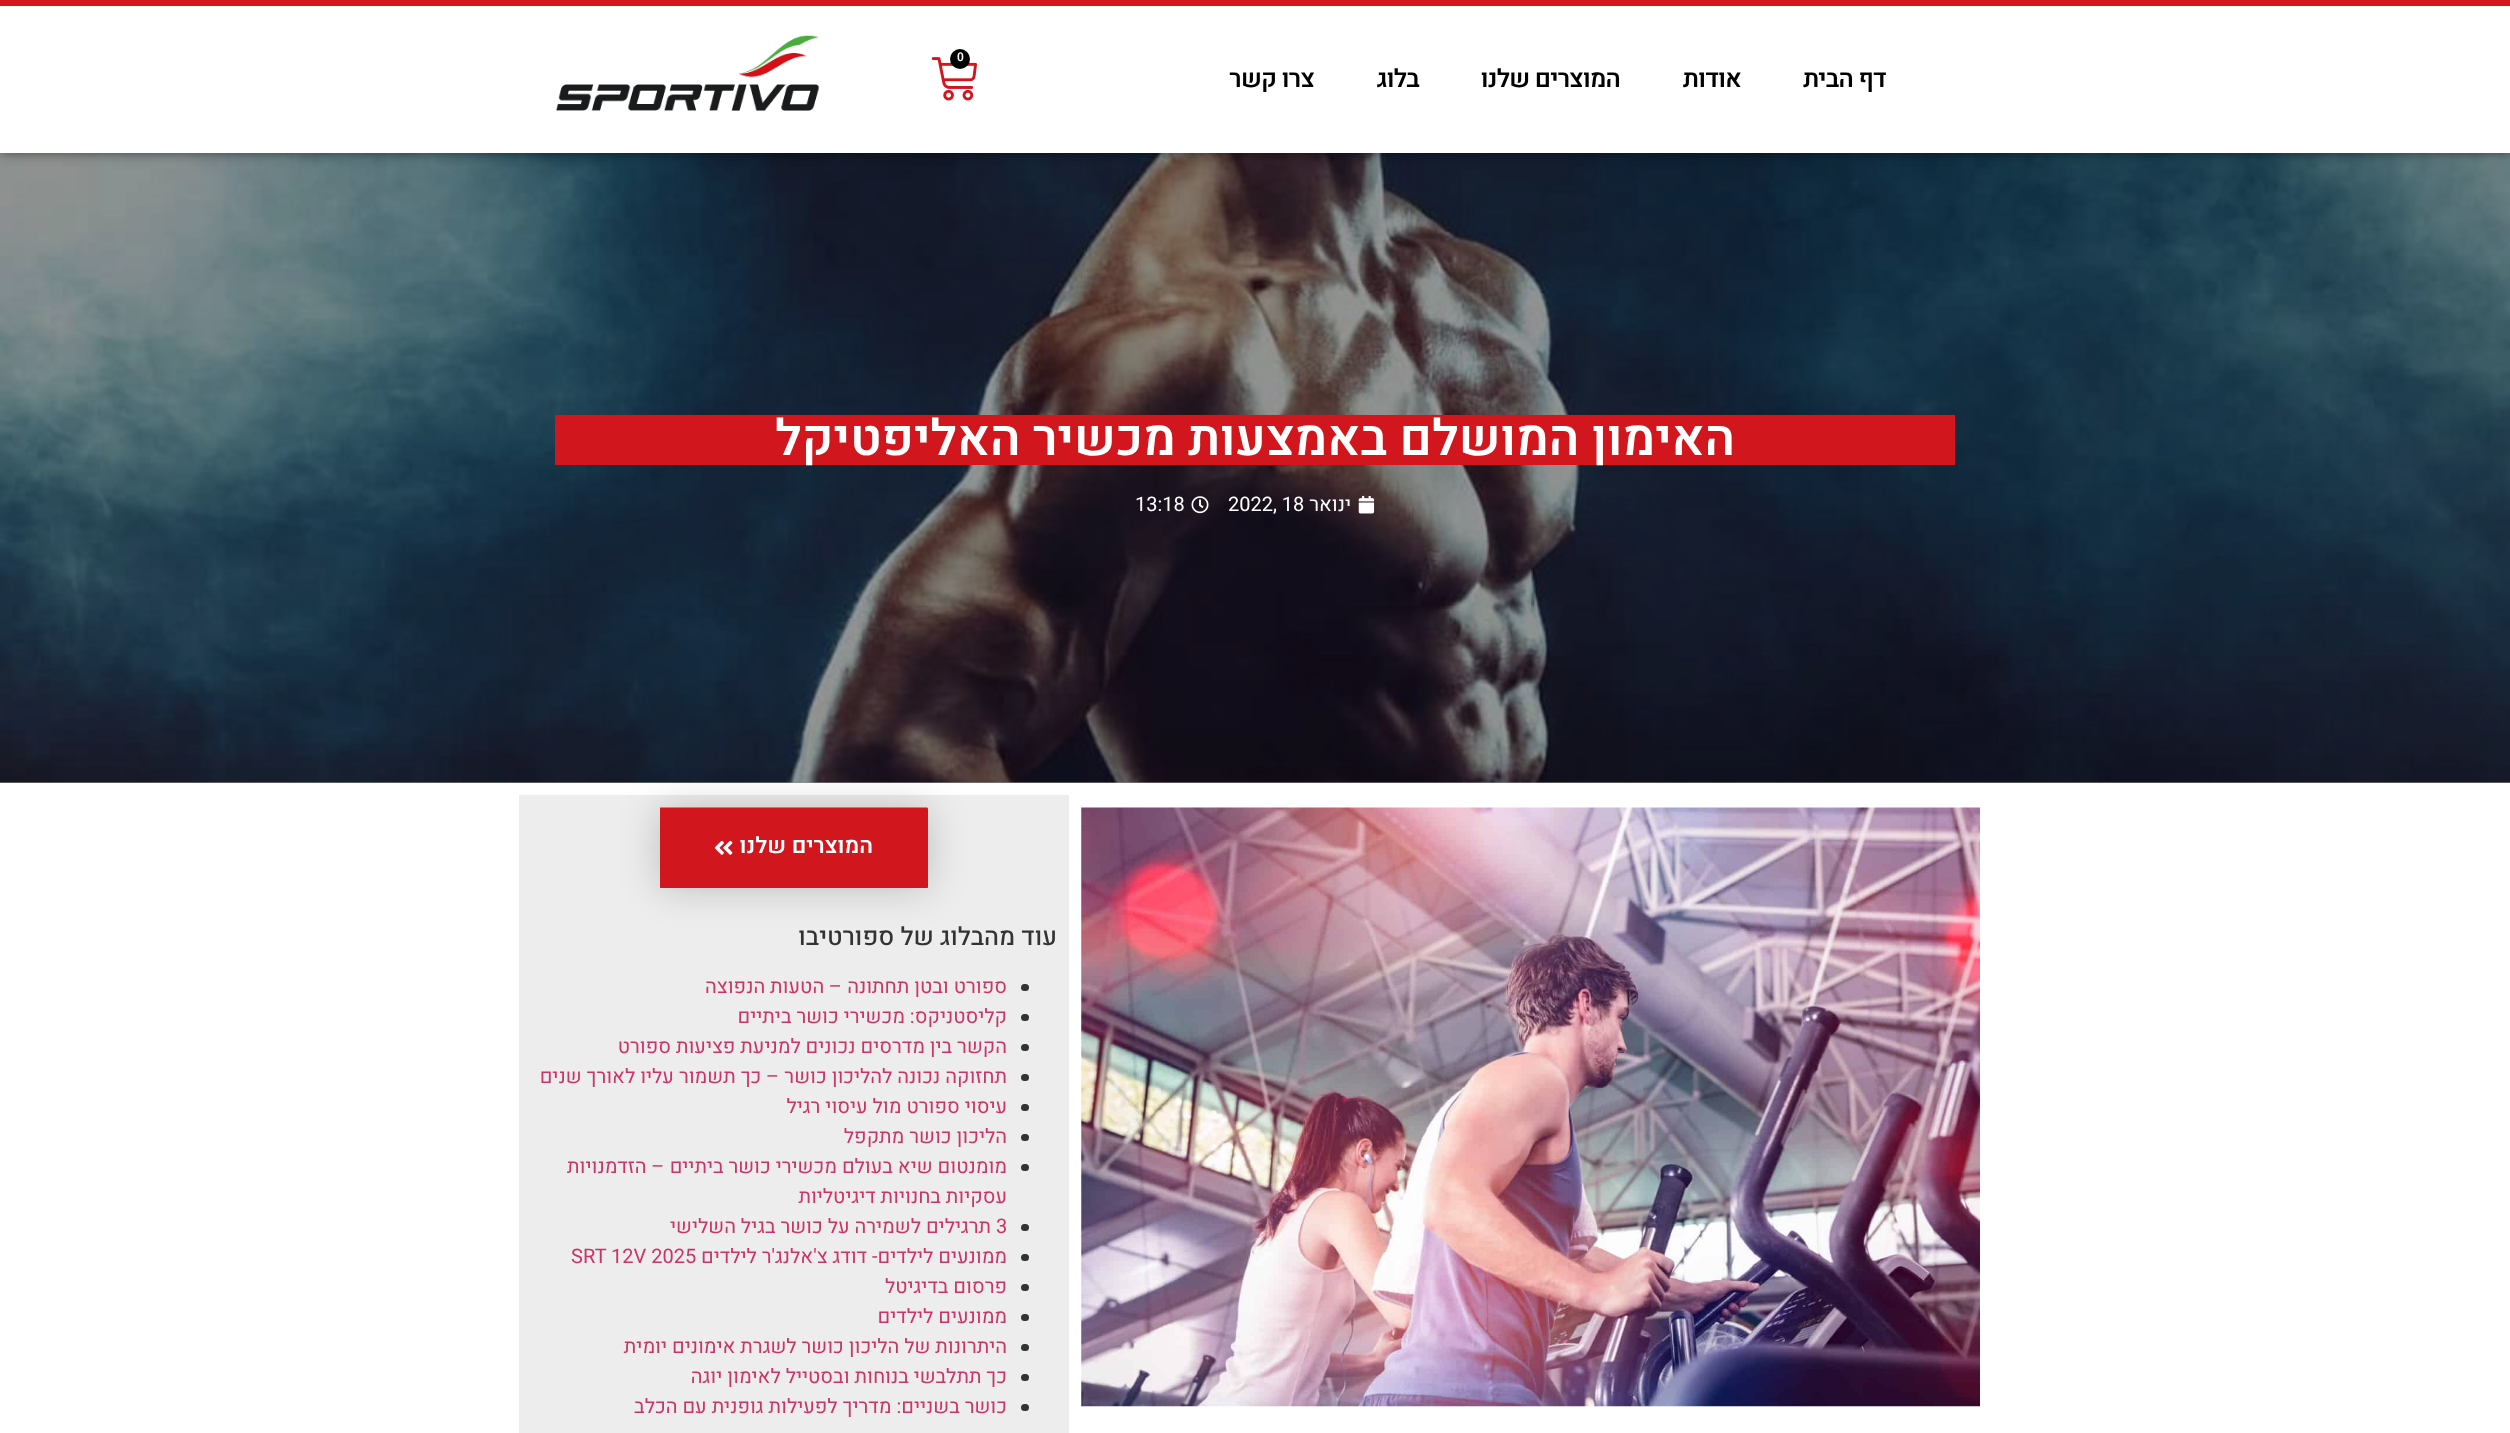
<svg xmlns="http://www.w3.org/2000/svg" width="2510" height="1433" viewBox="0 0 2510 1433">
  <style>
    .t1 { font: 600 12px Heebo; fill: #fff; }
    .t2 { font: 600 25px Heebo; letter-spacing: -0.75px; direction: rtl; fill: #000; }
    .t3 { font: 600 50px Heebo; direction: rtl; fill: #fff; }
    .t4 { font: 20px Heebo; direction: rtl; fill: #fff; }
    .t5 { font: 20px Heebo; fill: #fff; }
    .t6 { font: 600 22.5px Heebo; direction: rtl; fill: #fff; }
    .t7 { font: 500 25px Heebo; direction: rtl; fill: #333; }
    .t8 { font: 20px Heebo; direction: rtl; fill: #c36; }
    .t9 { font: 20px Heebo; fill: #c36; }
  </style>
  <rect width="100%" height="100%" fill="#fff"/>
  <rect x="0" y="782" width="2510" height="1" fill="#999"/>
  <image x="0" y="153" width="2510" height="630" href="images/3.png"/>
  <rect x="1" y="0" width="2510" height="153" fill="#00000080" filter="blur(6px)"/>
  <rect x="0" y="6" width="2510" height="147" fill="#fff"/>
  <rect x="0" y="0" width="2510" height="6" fill="#d1161d"/>
  <image x="931" y="57" width="46" height="44" href="images/1.png"/>
  <circle cx="960" cy="59" r="10" fill="#000"/>
  <text x="957" y="61" class="t1">0</text>
  <image x="556" y="35" width="264" height="76" href="images/2.png"/>
  <text x="1886" y="87" class="t2">דף הבית</text>
  <text x="1741" y="87" class="t2">אודות</text>
  <text x="1620" y="87" class="t2">המוצרים שלנו</text>
  <text x="1419" y="87" class="t2">בלוג</text>
  <text x="1314" y="87" class="t2">צרו קשר</text>
  <rect x="555" y="415" width="1400" height="50" fill="#d1161d"/>
  <text x="1735" y="455" class="t3">האימון המושלם באמצעות מכשיר האליפטיקל</text>
  <image x="1358" y="495" width="17" height="19" href="images/4.png"/>
  <text x="1351" y="511" class="t4">ינואר</text>
  <text x="1228" y="511" class="t5">2022, 18</text>
  <image x="1191" y="496" width="18" height="18" href="images/5.png"/>
  <text x="1135" y="511" class="t5">13:18</text>
  <image x="1081" y="807" width="899" height="600" href="images/6.png"/>
  <rect x="519" y="795" width="550" height="638" fill="#ededed"/>
  <rect x="660" y="808" width="268" height="80" rx="1" fill="#00000033" filter="blur(19px)"/>
  <rect x="660" y="808" width="268" height="80" rx="1" fill="#d1161d"/>
  <path d="M662 809.5H925.5V885.5H662Z" fill="none" stroke="#d1161d" stroke-width="3.8"/>
  <text x="873" y="853" class="t6">המוצרים שלנו</text>
  <image x="714" y="840" width="19" height="15" href="images/7.png"/>
  <text x="1057" y="945" class="t7">עוד מהבלוג של ספורטיבו</text>
  <rect x="1021" y="984" width="8" height="7" rx="3.5" fill="#333"/>
  <text x="1007" y="993" class="t8">ספורט ובטן תחתונה – הטעות הנפוצה</text>
  <rect x="1021" y="1014" width="8" height="7" rx="3.5" fill="#333"/>
  <text x="1007" y="1023" class="t8">קליסטניקס: מכשירי כושר ביתיים</text>
  <rect x="1021" y="1044" width="8" height="7" rx="3.5" fill="#333"/>
  <text x="1007" y="1053" class="t8">הקשר בין מדרסים נכונים למניעת פציעות ספורט</text>
  <rect x="1021" y="1074" width="8" height="7" rx="3.5" fill="#333"/>
  <text x="1007" y="1083" class="t8">תחזוקה נכונה להליכון כושר – כך תשמור עליו לאורך שנים</text>
  <rect x="1021" y="1104" width="8" height="7" rx="3.5" fill="#333"/>
  <text x="1007" y="1113" class="t8">עיסוי ספורט מול עיסוי רגיל</text>
  <rect x="1021" y="1134" width="8" height="7" rx="3.5" fill="#333"/>
  <text x="1007" y="1143" class="t8">הליכון כושר מתקפל</text>
  <rect x="1021" y="1164" width="8" height="7" rx="3.5" fill="#333"/>
  <text x="1007" y="1173" class="t8">מומנטום שיא בעולם מכשירי כושר ביתיים – הזדמנויות</text>
  <text x="1007" y="1203" class="t8">עסקיות בחנויות דיגיטליות</text>
  <rect x="1021" y="1224" width="8" height="7" rx="3.5" fill="#333"/>
  <text x="996" y="1233" class="t9">3</text>
  <text x="991" y="1233" class="t8">תרגילים לשמירה על כושר בגיל השלישי</text>
  <rect x="1021" y="1254" width="8" height="7" rx="3.5" fill="#333"/>
  <text x="1007" y="1263" class="t8">ממונעים לילדים- דודג צ'אלנג'ר לילדים</text>
  <text x="571" y="1263" class="t9">SRT 12V 2025</text>
  <rect x="1021" y="1284" width="8" height="7" rx="3.5" fill="#333"/>
  <text x="1007" y="1293" class="t8">פרסום בדיגיטל</text>
  <rect x="1021" y="1314" width="8" height="7" rx="3.5" fill="#333"/>
  <text x="1007" y="1323" class="t8">ממונעים לילדים</text>
  <rect x="1021" y="1344" width="8" height="7" rx="3.5" fill="#333"/>
  <text x="1007" y="1353" class="t8">היתרונות של הליכון כושר לשגרת אימונים יומית</text>
  <rect x="1021" y="1374" width="8" height="7" rx="3.5" fill="#333"/>
  <text x="1007" y="1383" class="t8">כך תתלבשי בנוחות ובסטייל לאימון יוגה</text>
  <rect x="1021" y="1404" width="8" height="7" rx="3.5" fill="#333"/>
  <text x="1007" y="1413" class="t8">כושר בשניים: מדריך לפעילות גופנית עם הכלב</text>
</svg>
